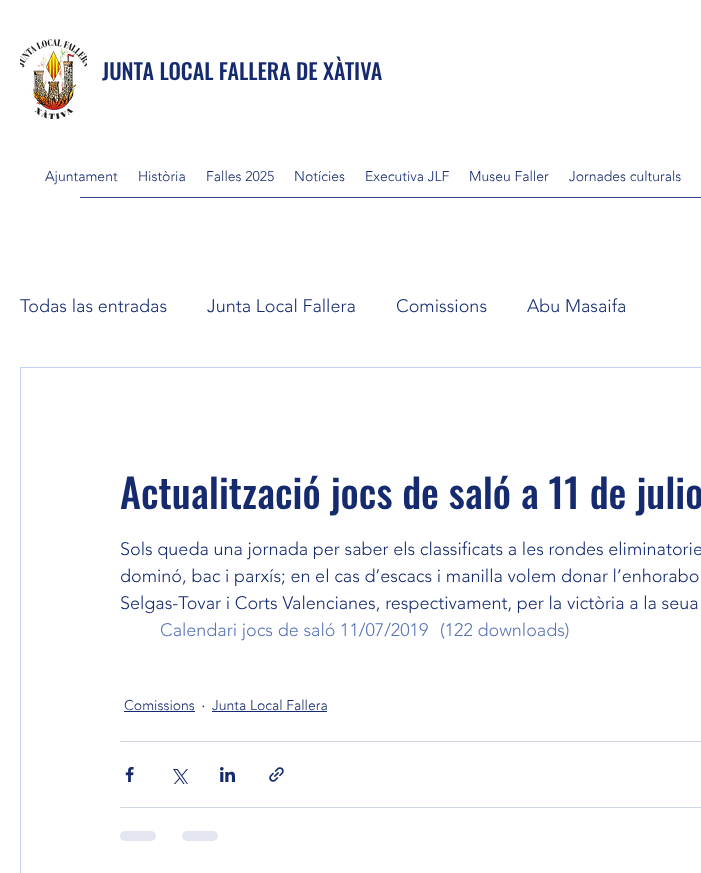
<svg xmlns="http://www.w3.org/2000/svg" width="701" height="873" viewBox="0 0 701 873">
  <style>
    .t1 { font: 500 22px Oswald; fill: #162b6f; }
    .t2 { font: 300 14px 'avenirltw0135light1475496'; fill: #162b6f; }
    .t3 { font: 300 18px 'avenirltw0135light1475496'; fill: #162b6f; }
    .t4 { font: 500 40px Oswald; fill: #162b6f; }
    .t5 { font: 300 18px 'avenirltw0135light1475496'; fill: #5a74b7; }
  </style>
  <rect width="100%" height="100%" fill="#fff"/>
  <image x="20" y="39" width="67" height="80" href="images/1.png"/>
  <text x="102" y="80" class="t1">JUNTA LOCAL FALLERA DE XÀTIVA</text>
  <text x="45" y="181" class="t2">Ajuntament</text>
  <text x="138" y="181" class="t2">Història</text>
  <text x="206" y="181" class="t2">Falles 2025</text>
  <text x="294" y="181" class="t2">Notícies</text>
  <text x="365" y="181" class="t2">Executiva JLF</text>
  <text x="469" y="181" class="t2">Museu Faller</text>
  <text x="569" y="181" class="t2">Jornades culturals</text>
  <rect x="80" y="197" width="621" height="1" fill="#394b85"/>
  <text x="20" y="312" class="t3">Todas las entradas</text>
  <text x="207" y="312" class="t3">Junta Local Fallera</text>
  <text x="396" y="312" class="t3">Comissions</text>
  <text x="527" y="312" class="t3">Abu Masaifa</text>
  <rect x="20.5" y="367.5" width="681" height="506" fill="none" stroke="#c4cff3"/>
  <text x="120" y="509" class="t4">Actualització jocs de saló a 11 de julio</text>
  <text x="120" y="555" class="t3">Sols queda una jornada per saber els classificats a les rondes eliminatorie</text>
  <text x="120" y="582" class="t3">dominó, bac i parxís; en el cas d’escacs i manilla volem donar l’enhorabo</text>
  <text x="120" y="609" class="t3">Selgas-Tovar i Corts Valencianes, respectivament, per la victòria a la seua</text>
  <text x="160" y="636" class="t5">Calendari jocs de saló 11/07/2019</text>
  <text x="440" y="636" class="t5">(122 downloads)</text>
  <text x="124" y="710" class="t2">Comissions</text>
  <rect x="124" y="711" width="71" height="1" fill="#162b6f"/>
  <text x="201" y="712" class="t3">·</text>
  <text x="212" y="710" class="t2">Junta Local Fallera</text>
  <rect x="212" y="711" width="115" height="1" fill="#162b6f"/>
  <rect x="120" y="741" width="581" height="1" fill="#d0d5e2"/>
  <image x="125" y="767" width="9" height="15" href="images/2.png"/>
  <image x="173" y="769" width="15" height="15" href="images/3.png"/>
  <image x="220" y="767" width="15" height="15" href="images/4.png"/>
  <image x="269" y="767" width="15" height="15" href="images/5.png"/>
  <rect x="120" y="807" width="581" height="1" fill="#d0d5e2"/>
  <rect x="120" y="831" width="36" height="10" rx="5" fill="#e3e6ee"/>
  <rect x="182" y="831" width="36" height="10" rx="5" fill="#e3e6ee"/>
</svg>
